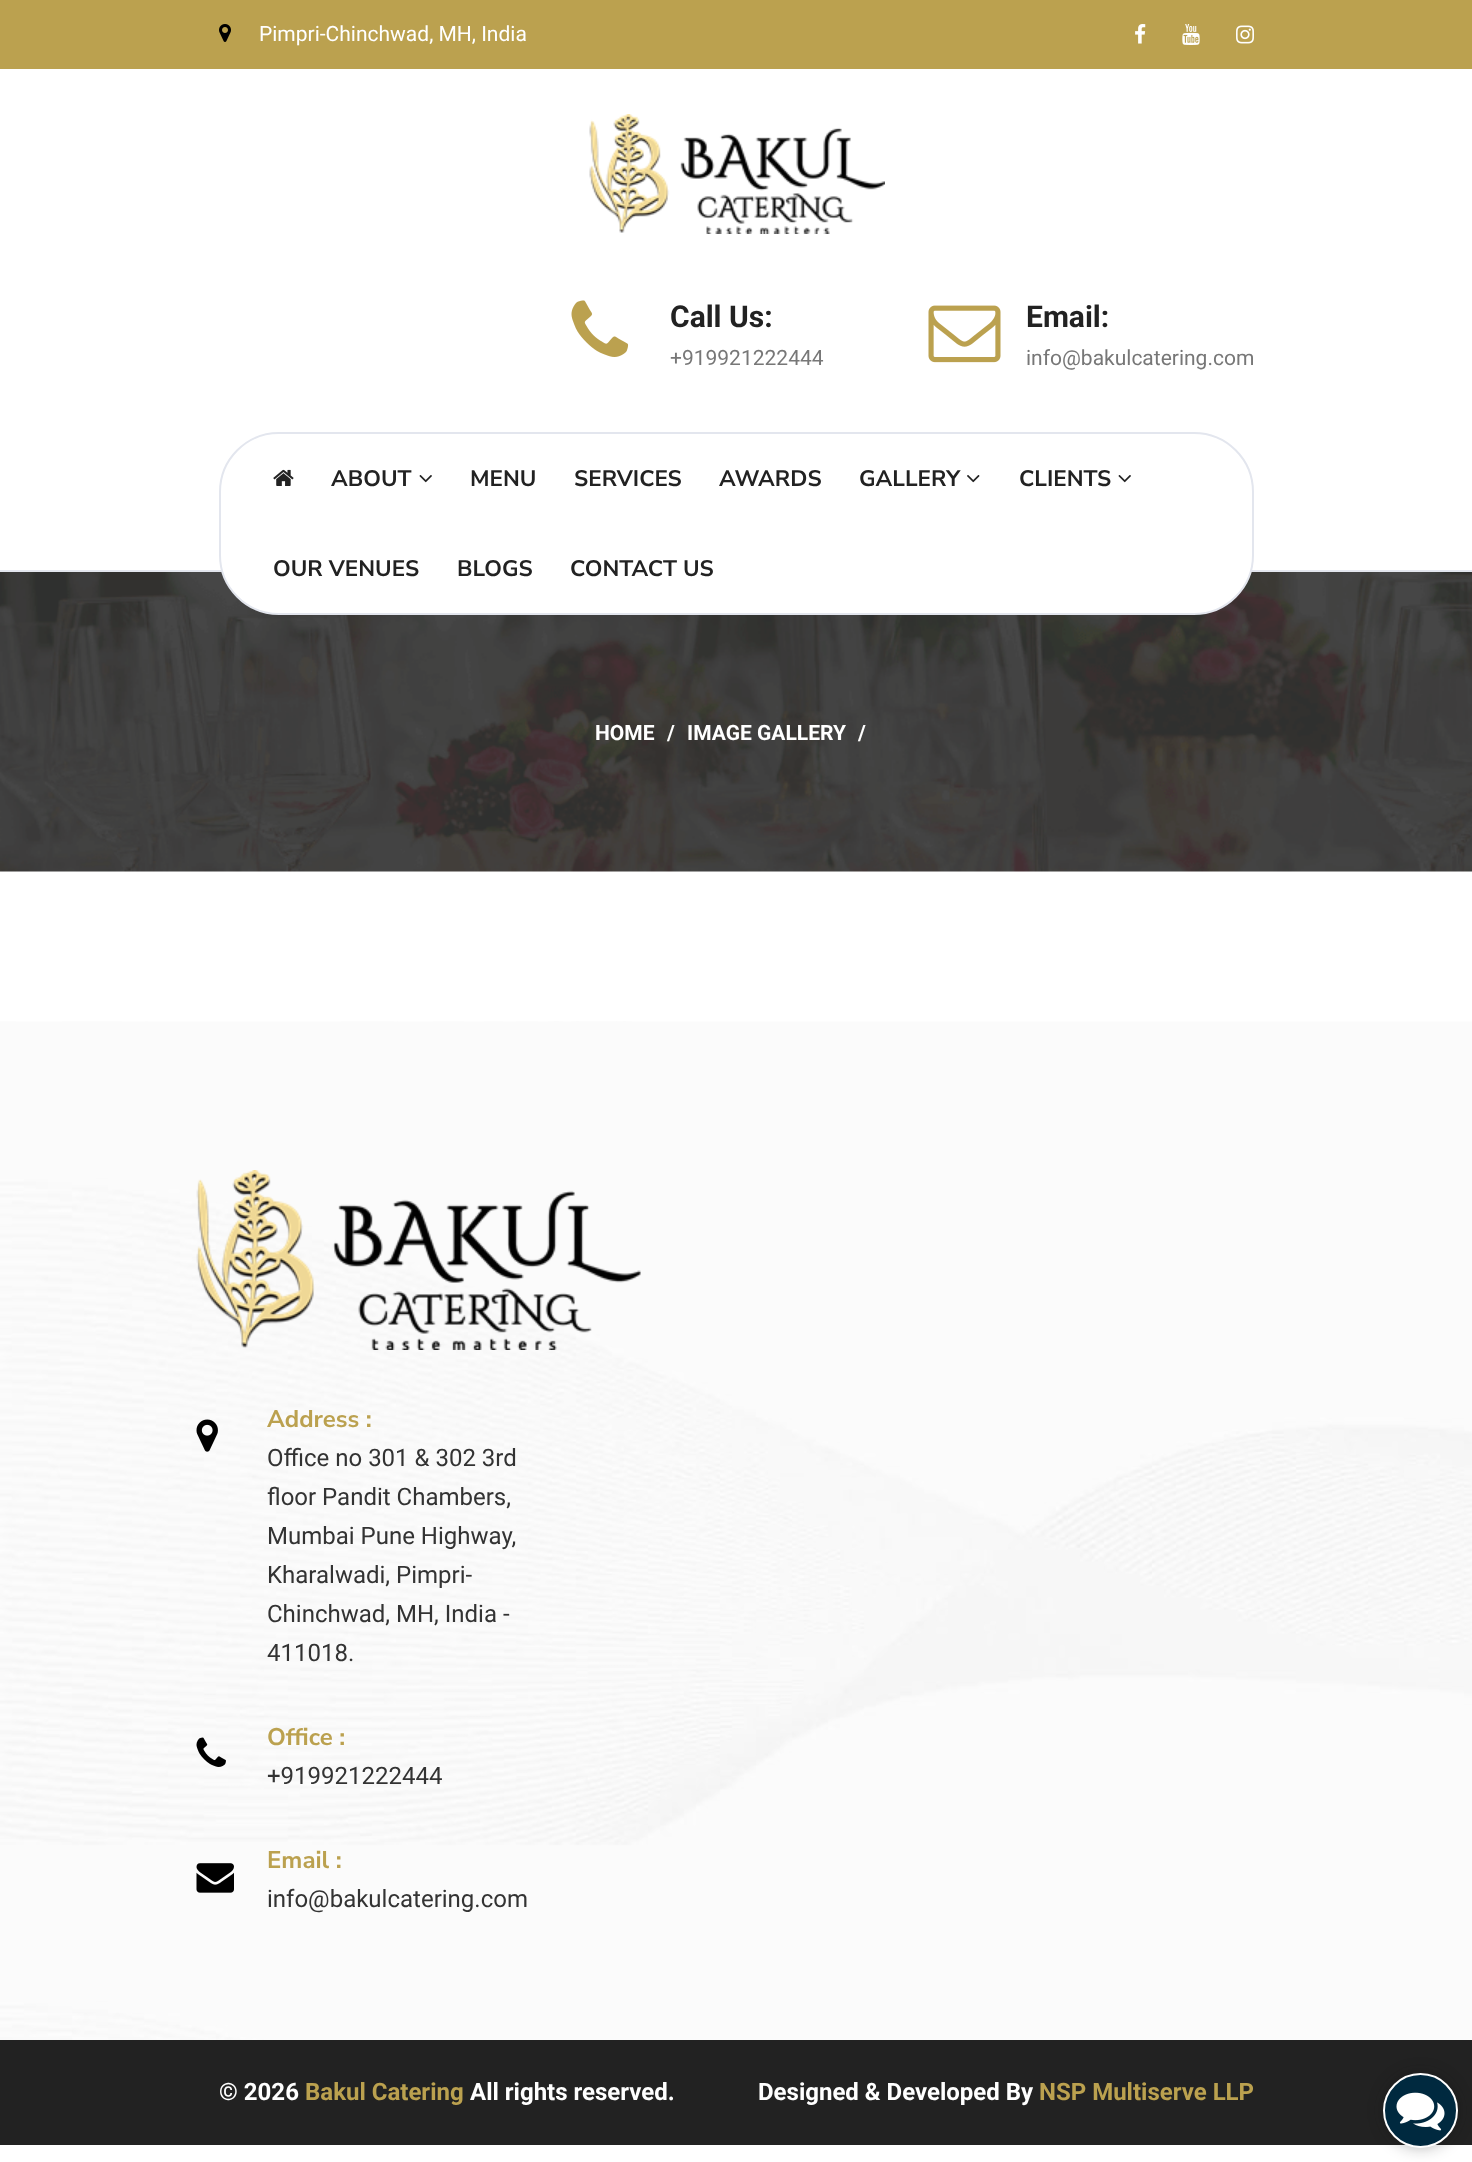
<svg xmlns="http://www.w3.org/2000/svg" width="1472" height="2162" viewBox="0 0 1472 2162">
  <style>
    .t1 { font: 21px Roboto; fill: #fff; }
    .t2 { font: bold 30px Roboto; fill: #222; }
    .t3 { font: 21px Roboto; fill: #777; }
    .t4 { font: bold 22.5px Nunito Sans; fill: #222; }
    .t5 { font: bold 21px Roboto; fill: #fff; }
    .t6 { font: bold 24px Nunito Sans; fill: #bba14f; }
    .t7 { font: 24px Roboto; fill: #333; }
    .t8 { font: bold 24px Roboto; fill: #fff; }
    .t9 { font: bold 24px Roboto; fill: #bba14f; }
  </style>
  <rect width="100%" height="100%" fill="#fff"/>
  <rect x="0" y="0" width="1472" height="69" fill="#bba14f"/>
  <image x="219" y="24" width="12" height="18" href="images/1.png"/>
  <text x="259" y="41" class="t1">Pimpri-Chinchwad, MH, India</text>
  <image x="1135" y="24" width="11" height="20" href="images/2.png"/>
  <image x="1182" y="24" width="18" height="21" href="images/3.png"/>
  <image x="1236" y="25" width="18" height="19" href="images/4.png"/>
  <image x="589" y="114" width="296" height="120" href="images/5.png"/>
  <image x="571" y="300" width="58" height="57" href="images/6.png"/>
  <text x="670" y="327" class="t2">Call Us:</text>
  <text x="670" y="365" class="t3">+919921222444</text>
  <image x="928" y="305" width="73" height="58" href="images/7.png"/>
  <text x="1026" y="327" class="t2">Email:</text>
  <text x="1026" y="365" class="t3">info@bakulcatering.com</text>
  <rect x="0" y="570" width="1472" height="2" fill="#e3e6ee"/>
  <image x="0" y="572" width="1472" height="300" href="images/11.png"/>
  <rect x="220" y="433" width="1033" height="181" rx="59" fill="#fff" stroke="#e3e6ee" stroke-width="2"/>
  <image x="273" y="469" width="21" height="17" href="images/8.png"/>
  <text x="331" y="486" class="t4">ABOUT</text>
  <image x="419" y="475" width="13" height="8" href="images/9.png"/>
  <text x="470" y="486" class="t4">MENU</text>
  <text x="574" y="486" class="t4">SERVICES</text>
  <text x="719" y="486" class="t4">AWARDS</text>
  <text x="859" y="486" class="t4">GALLERY</text>
  <image x="967" y="475" width="13" height="8" href="images/10.png"/>
  <text x="1019" y="486" class="t4">CLIENTS</text>
  <image x="1118" y="475" width="13" height="8" href="images/9.png"/>
  <text x="273" y="576" class="t4">OUR VENUES</text>
  <text x="457" y="576" class="t4">BLOGS</text>
  <text x="570" y="576" class="t4">CONTACT US</text>
  <text x="595" y="740" class="t5">HOME</text>
  <text x="667" y="740" class="t5">/</text>
  <text x="687" y="740" class="t5">IMAGE GALLERY</text>
  <text x="858" y="740" class="t5">/</text>
  <image x="0" y="1021" width="1472" height="1019" href="images/12.png"/>
  <image x="196" y="1170" width="445" height="180" href="images/13.png"/>
  <image x="196" y="1419" width="22" height="33" href="images/14.png"/>
  <text x="267" y="1427" class="t6">Address :</text>
  <text x="267" y="1466" class="t7">Office no 301 &amp; 302 3rd</text>
  <text x="267" y="1505" class="t7">floor Pandit Chambers,</text>
  <text x="267" y="1544" class="t7">Mumbai Pune Highway,</text>
  <text x="267" y="1583" class="t7">Kharalwadi, Pimpri-</text>
  <text x="267" y="1622" class="t7">Chinchwad, MH, India -</text>
  <text x="267" y="1661" class="t7">411018.</text>
  <image x="196" y="1737" width="30" height="30" href="images/15.png"/>
  <text x="267" y="1745" class="t6">Office :</text>
  <text x="267" y="1784" class="t7">+919921222444</text>
  <text x="267" y="1868" class="t6">Email :</text>
  <image x="196" y="1863" width="38" height="30" href="images/16.png"/>
  <text x="267" y="1907" class="t7">info@bakulcatering.com</text>
  <rect x="0" y="2040" width="1472" height="105" fill="#222"/>
  <text x="219" y="2100" class="t8">© 2026</text>
  <text x="305" y="2100" class="t9">Bakul Catering</text>
  <text x="470" y="2100" class="t8">All rights reserved.</text>
  <text x="758" y="2100" class="t8">Designed &amp; Developed By</text>
  <text x="1039" y="2100" class="t9">NSP Multiserve LLP</text>
  <rect x="1383" y="2073" width="75" height="75" rx="37.5" fill="#0c0c0c4d" filter="blur(7.5px)"/>
  <circle cx="1420.5" cy="2110.5" r="36.5" fill="#00293f" stroke="#fff" stroke-width="2"/>
  <image x="1396" y="2092" width="49" height="39" href="images/17.png"/>
</svg>
